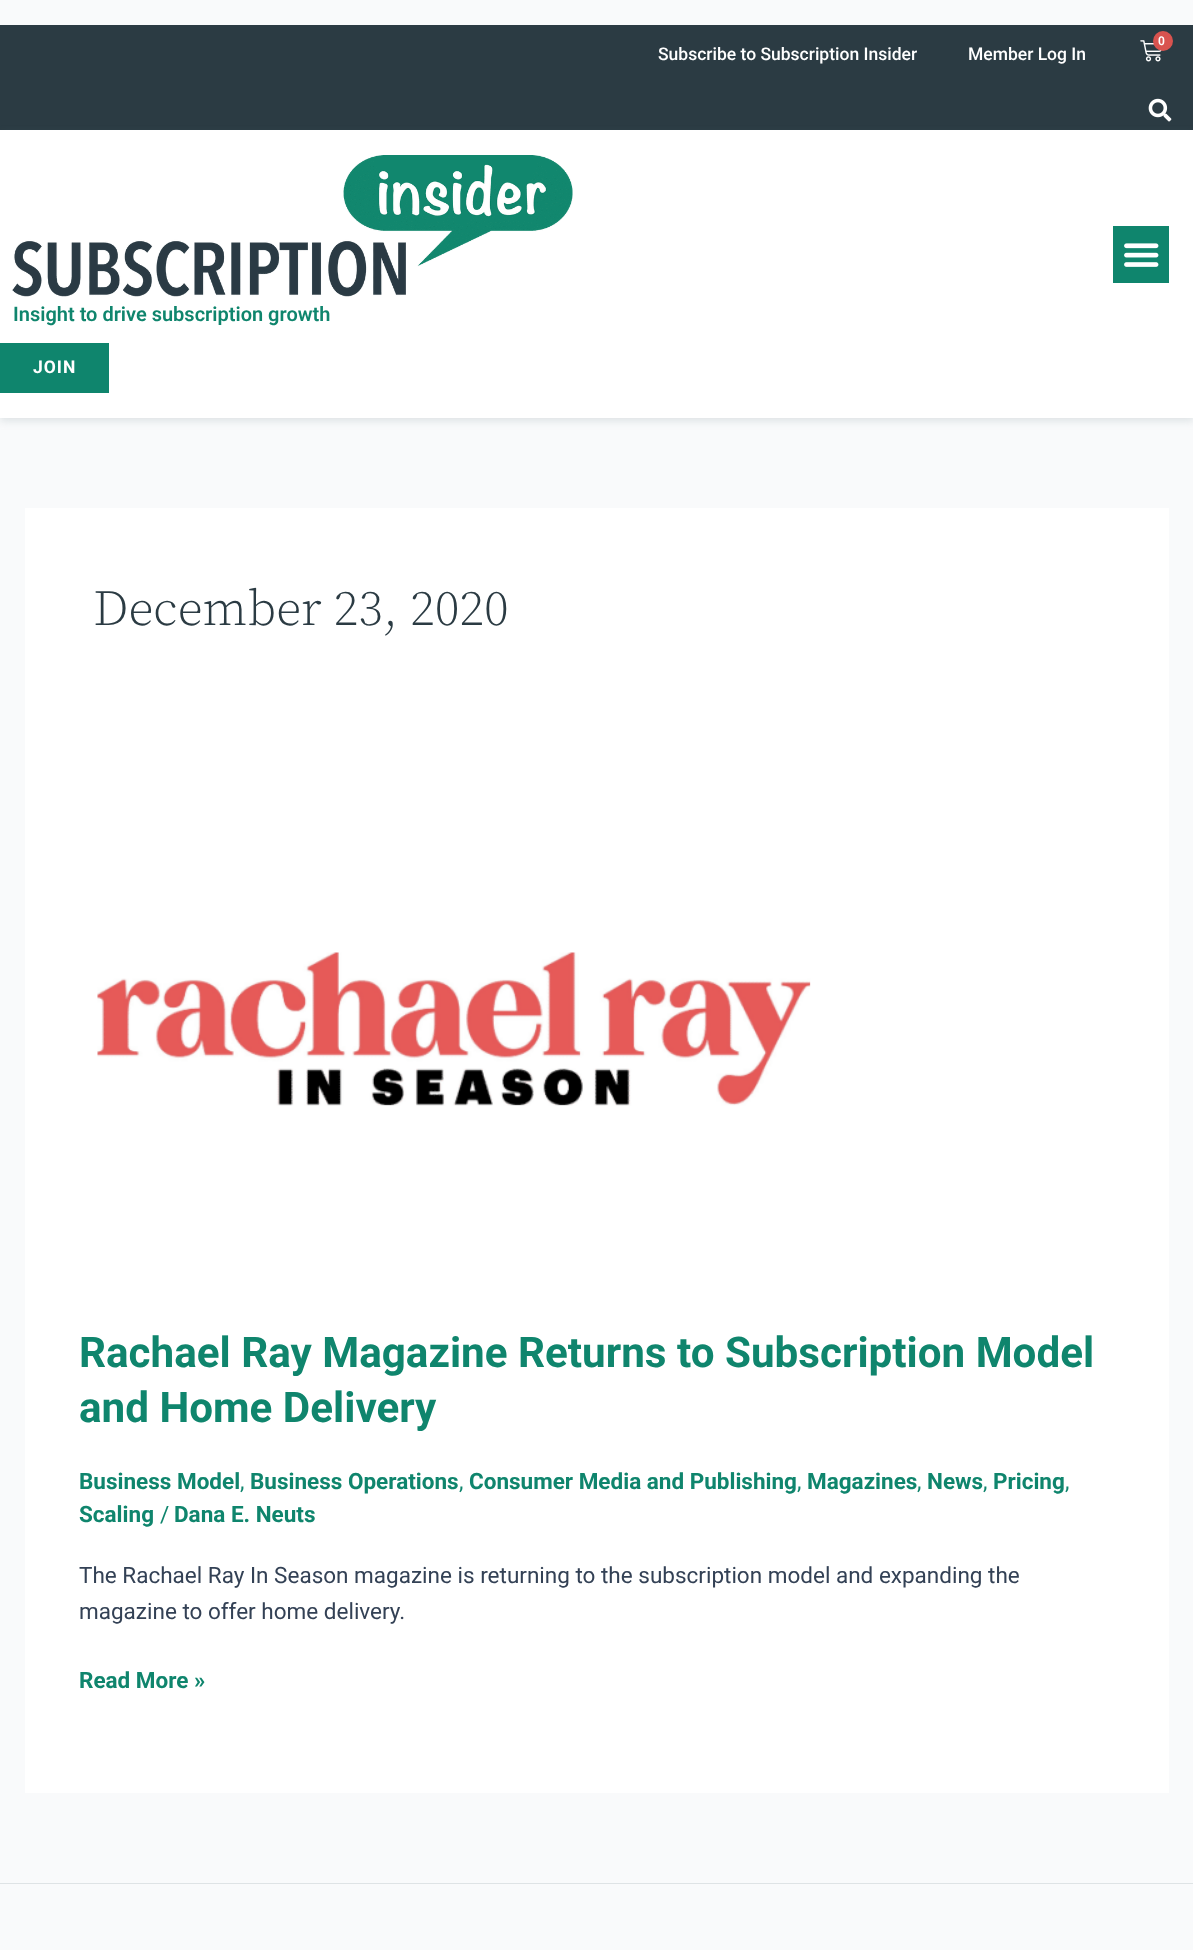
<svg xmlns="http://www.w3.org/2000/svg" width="1193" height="1950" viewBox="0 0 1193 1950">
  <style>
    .t1 { font: 600 12px Roboto; fill: #fff; }
    .t2 { font: 500 17.5px Roboto; fill: #fff; }
    .t3 { font: 600 20px Roboto; fill: #0f856d; }
    .t4 { font: bold 17.5px Roboto; letter-spacing: 1px; fill: #fff; }
    .t5 { font: 300 50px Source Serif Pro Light; fill: #2b3b43; }
    .t6 { font: bold 42.2px Roboto; fill: #0f856d; }
    .t7 { font: bold 22.5px Roboto; fill: #0f856d; }
    .t8 { font: 22.5px Roboto; fill: #0f856d; }
    .t9 { font: 22.5px Roboto; fill: #334155; }
  </style>
  <rect width="100%" height="100%" fill="#f9fafb"/>
  <rect x="0" y="25" width="1193" height="105" fill="#2b3b43"/>
  <image x="1140" y="40" width="22" height="22" href="images/1.png"/>
  <circle cx="1163" cy="41" r="10" fill="#d9534f"/>
  <text x="1158" y="45" class="t1">0</text>
  <text x="658" y="60" class="t2">Subscribe to Subscription Insider</text>
  <text x="968" y="60" class="t2">Member Log In</text>
  <image x="1148" y="98" width="24" height="24" href="images/2.png"/>
  <rect x="0" y="134" width="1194" height="287" fill="#70878e33" filter="blur(4px)"/>
  <rect x="0" y="130" width="1193" height="288" fill="#fff"/>
  <rect x="1113" y="226" width="56" height="57" fill="#0f856d"/>
  <image x="1124" y="243" width="35" height="24" href="images/3.png"/>
  <image x="12" y="155" width="561" height="142" href="images/4.png"/>
  <text x="13" y="321" class="t3">Insight to drive subscription growth</text>
  <rect x="0" y="343" width="109" height="50" fill="#0f856d"/>
  <text x="33" y="373" class="t4">JOIN</text>
  <rect x="25" y="508" width="1144" height="1285" fill="#fff"/>
  <text x="93" y="625" class="t5">December 23, 2020</text>
  <image x="97" y="952" width="714" height="154" href="images/5.png"/>
  <text x="79" y="1367" class="t6">Rachael Ray Magazine Returns to Subscription Model</text>
  <text x="79" y="1422" class="t6">and Home Delivery</text>
  <text x="79" y="1489" class="t7">Business Model</text>
  <text x="240" y="1489" class="t8">,</text>
  <text x="250" y="1489" class="t7">Business Operations</text>
  <text x="459" y="1489" class="t8">,</text>
  <text x="469" y="1489" class="t7">Consumer Media and Publishing</text>
  <text x="797" y="1489" class="t8">,</text>
  <text x="807" y="1489" class="t7">Magazines</text>
  <text x="917" y="1489" class="t8">,</text>
  <text x="927" y="1489" class="t7">News</text>
  <text x="983" y="1489" class="t8">,</text>
  <text x="993" y="1489" class="t7">Pricing</text>
  <text x="1065" y="1489" class="t8">,</text>
  <text x="79" y="1522" class="t7">Scaling</text>
  <text x="160" y="1522" class="t8">/</text>
  <text x="174" y="1522" class="t7">Dana E. Neuts</text>
  <text x="79" y="1583" class="t9">The Rachael Ray In Season magazine is returning to the subscription model and expanding the</text>
  <text x="79" y="1619" class="t9">magazine to offer home delivery.</text>
  <text x="79" y="1688" class="t7">Read More »</text>
  <rect x="0" y="1883" width="1193" height="1" fill="#dee3e5"/>
</svg>
